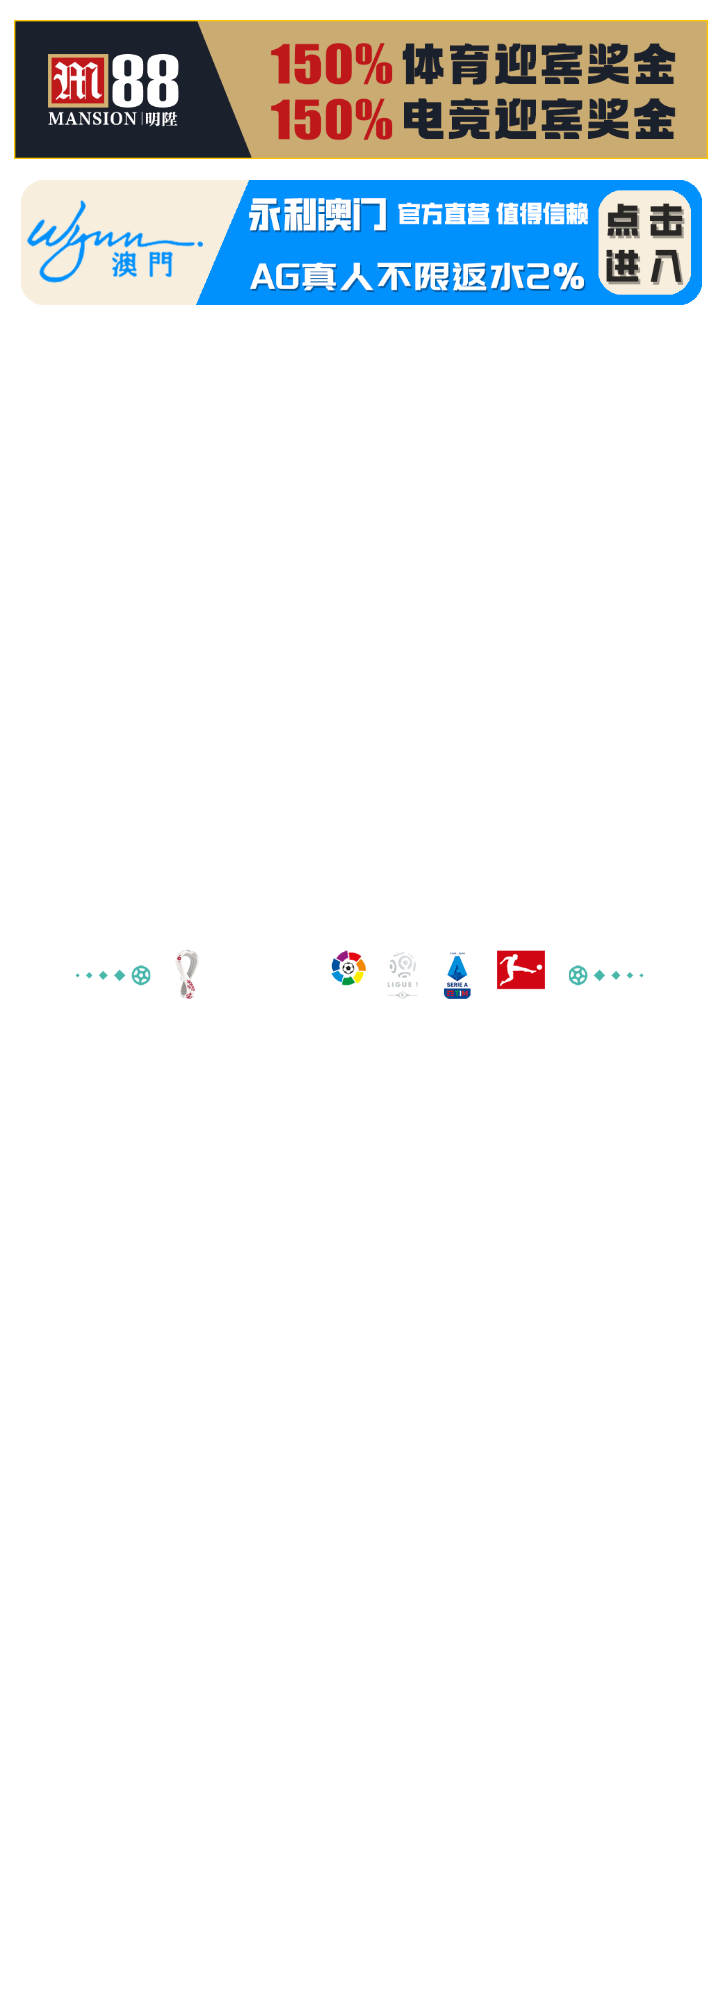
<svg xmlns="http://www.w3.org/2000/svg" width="723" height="2010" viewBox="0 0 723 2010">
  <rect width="100%" height="100%" fill="#fff"/>
  <image x="14" y="20" width="694" height="979" href="images/1.png"/>
</svg>
